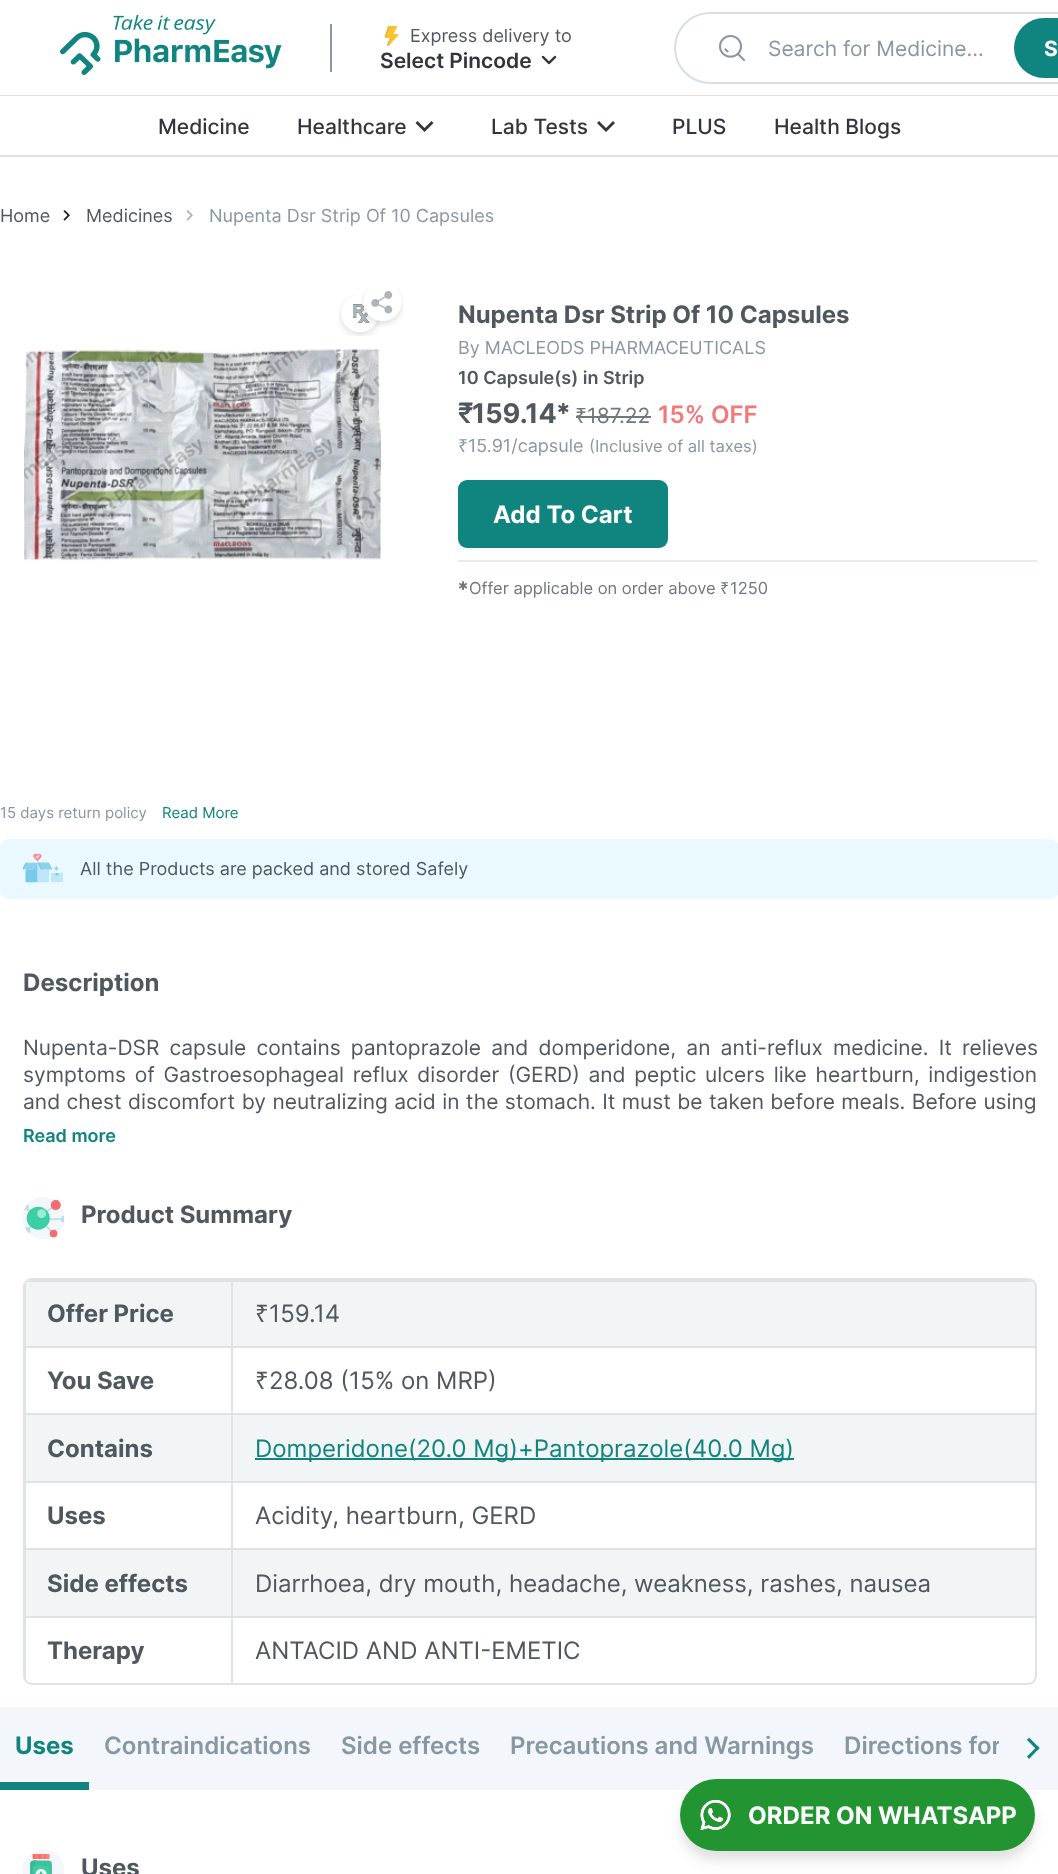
<svg xmlns="http://www.w3.org/2000/svg" width="1058" height="1874" viewBox="0 0 1058 1874">
  <style>
    .t1 { font: 18px Inter; fill: #4f585e; }
    .t2 { font: 600 21px Inter; fill: #30363c; }
    .t3 { font: 21px Inter; fill: #8897a2; }
    .t4 { font: bold 21px Inter; fill: #fff; }
    .t5 { font: 500 21px Inter; fill: #30363c; }
    .t6 { font: 18px Inter; fill: #8897a2; }
    .t7 { font: bold 24px Inter; fill: #4f585e; }
    .t8 { font: 600 18px Inter; fill: #4f585e; }
    .t9 { font: bold 27px 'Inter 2'; fill: #4f585e; }
    .t10 { font: bold 27px Inter; fill: #4f585e; }
    .t11 { font: 15px DejaVu Sans; fill: #4f585e; }
    .t12 { font: 21px Noto Sans; fill: #6e787e; }
    .t13 { font: 21px Inter; fill: #6e787e; }
    .t14 { font: 600 24px Inter; fill: #f47779; }
    .t15 { font: 18px Noto Sans; fill: #8897a2; }
    .t16 { font: 16.5px Inter; fill: #8897a2; }
    .t17 { font: bold 24px Inter; fill: #fff; }
    .t18 { font: 12px DejaVu Sans; fill: #6e787e; }
    .t19 { font: 16.5px Inter; fill: #6e787e; }
    .t20 { font: 16.5px Noto Sans; fill: #6e787e; }
    .t21 { font: 15px Inter; fill: #8897a2; }
    .t22 { font: 15px Inter; fill: #10847e; }
    .t23 { font: 21px Inter; fill: #4f585e; }
    .t24 { font: 600 18px Inter; fill: #10847e; }
    .t25 { font: 24px Noto Sans; fill: #4f585e; }
    .t26 { font: 24px Inter; fill: #4f585e; }
    .t27 { font: 24px Inter; fill: #10847e; }
    .t28 { font: bold 24px Inter; fill: #10847e; }
    .t29 { font: 600 24px Inter; fill: #8897a2; }
  </style>
  <defs>
    <clipPath id="clip1"><rect x="24" y="1280" width="1011" height="403" rx="8"/></clipPath>
    <clipPath id="clip2"><rect x="0" y="1707" width="999" height="83"/></clipPath>
  </defs>
  <rect width="100%" height="100%" fill="#fff"/>
  <rect x="0" y="95" width="1058" height="1" fill="#e0e0e0"/>
  <image x="60" y="15" width="222" height="60" href="images/1.png"/>
  <rect x="330" y="24" width="2" height="48" fill="#8897a2"/>
  <image x="384" y="26" width="15" height="20" href="images/2.png"/>
  <text x="410" y="42" class="t1">Express delivery to</text>
  <text x="380" y="68" class="t2">Select Pincode</text>
  <image x="541" y="55" width="16" height="10" href="images/3.png"/>
  <rect x="675" y="13" width="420" height="70" rx="35" fill="none" stroke="#d7dfe5" stroke-width="2"/>
  <image x="719" y="35" width="26" height="26" href="images/4.png"/>
  <text x="768" y="56" class="t3">Search for Medicine...</text>
  <rect x="1014" y="18" width="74" height="60" rx="30" fill="#10847e"/>
  <text x="1044" y="56" class="t4">S</text>
  <rect x="0" y="155" width="1058" height="2" fill="#e0e0e0"/>
  <text x="158" y="134" class="t5">Medicine</text>
  <text x="297" y="134" class="t5">Healthcare</text>
  <path d="M431.5 121L424.5 128L417.5 121L415.5 123L424.5 132L433.5 123Z" fill="#30363c" fill-rule="evenodd"/>
  <text x="491" y="134" class="t5">Lab Tests</text>
  <path d="M613 121L606 128L599 121L597 123L606 132L615 123Z" fill="#30363c" fill-rule="evenodd"/>
  <text x="672" y="134" class="t5">PLUS</text>
  <text x="774" y="134" class="t5">Health Blogs</text>
  <text x="0" y="222" class="t1">Home</text>
  <image x="63" y="210" width="7" height="11" href="images/5.png"/>
  <text x="86" y="222" class="t1">Medicines</text>
  <image x="186" y="210" width="7" height="11" href="images/6.png"/>
  <text x="209" y="222" class="t6">Nupenta Dsr Strip Of 10 Capsules</text>
  <image x="338" y="295" width="43" height="41" href="images/9.png"/>
  <image x="361" y="288" width="43" height="39" href="images/7.png"/>
  <image x="24" y="348" width="357" height="213" href="images/8.png"/>
  <text x="458" y="323" class="t7">Nupenta Dsr Strip Of 10 Capsules</text>
  <text x="458" y="354" class="t6">By MACLEODS PHARMACEUTICALS</text>
  <text x="458" y="384" class="t8">10 Capsule(s) in Strip</text>
  <text x="458" y="423" class="t9">₹</text>
  <text x="472" y="423" class="t10">159.14</text>
  <text x="557" y="414" class="t11">✱</text>
  <text x="575" y="423" class="t12">₹</text>
  <rect x="576" y="416" width="12" height="2" fill="#6e787e"/>
  <text x="587" y="423" class="t13">187.22</text>
  <rect x="588" y="416" width="63" height="2" fill="#6e787e"/>
  <text x="658" y="423" class="t14">15% OFF</text>
  <text x="458" y="452" class="t15">₹</text>
  <text x="468" y="452" class="t6">15.91/capsule</text>
  <text x="589" y="452" class="t16">(Inclusive of all taxes)</text>
  <rect x="458" y="480" width="210" height="68" rx="9" fill="#10847e"/>
  <text x="493" y="523" class="t17">Add To Cart</text>
  <rect x="458" y="560" width="579" height="2" fill="#e6ebf4"/>
  <text x="458" y="590" class="t18">✱</text>
  <text x="469" y="594" class="t19">Offer applicable on order above</text>
  <text x="720" y="594" class="t20">₹</text>
  <text x="730" y="594" class="t19">1250</text>
  <text x="0" y="818" class="t21">15 days return policy</text>
  <text x="162" y="818" class="t22">Read More</text>
  <rect x="0" y="839" width="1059" height="60" rx="9" fill="#e9f9ff"/>
  <image x="22" y="853" width="41" height="30" href="images/10.png"/>
  <text x="80" y="875" class="t1">All the Products are packed and stored Safely</text>
  <text x="23" y="991" class="t7">Description</text>
  <text x="23" y="1055" word-spacing="4.25" class="t23">Nupenta-DSR capsule contains pantoprazole and domperidone, an anti-reflux medicine. It relieves</text>
  <text x="23" y="1082" word-spacing="2.75" class="t23">symptoms of Gastroesophageal reflux disorder (GERD) and peptic ulcers like heartburn, indigestion</text>
  <text x="23" y="1109" word-spacing="0.5" class="t23">and chest discomfort by neutralizing acid in the stomach. It must be taken before meals. Before using</text>
  <text x="23" y="1142" class="t24">Read more</text>
  <image x="23" y="1197" width="42" height="42" href="images/11.png"/>
  <text x="81" y="1223" class="t7">Product Summary</text>
  <rect x="24" y="1279" width="1012" height="405" rx="8" fill="none" stroke="#dfe3e6" stroke-width="2"/>
  <path d="M32 1280H1027C1031.5 1280 1035 1283.5 1035 1288V1347H24V1288C24 1283.5 27.5 1280 32 1280Z" fill="#f2f5f5"/>
  <g clip-path="url(#clip1)">
    <rect x="231" y="1280" width="804" height="2" fill="#dfe3e6"/>
  </g>
  <rect x="24" y="1346" width="1011" height="2" fill="#dfe3e6"/>
  <rect x="26" y="1415" width="1009" height="66" fill="#f2f5f5"/>
  <rect x="24" y="1413" width="1011" height="2" fill="#dfe3e6"/>
  <rect x="24" y="1481" width="1011" height="2" fill="#dfe3e6"/>
  <rect x="26" y="1550" width="1009" height="66" fill="#f2f5f5"/>
  <rect x="24" y="1548" width="1011" height="2" fill="#dfe3e6"/>
  <rect x="24" y="1616" width="1011" height="2" fill="#dfe3e6"/>
  <rect x="231" y="1346" width="2" height="337" fill="#dfe3e6"/>
  <rect x="231" y="1280" width="2" height="67" fill="#dfe3e6"/>
  <g clip-path="url(#clip1)">
    <rect x="24" y="1280" width="209" height="2" fill="#dfe3e6"/>
    <rect x="24" y="1616" width="2" height="67" fill="#dfe3e6"/>
  </g>
  <rect x="25" y="1548" width="1" height="69" fill="#dfe3e6"/>
  <rect x="25" y="1481" width="1" height="69" fill="#dfe3e6"/>
  <rect x="25" y="1413" width="1" height="69" fill="#dfe3e6"/>
  <rect x="25" y="1346" width="1" height="69" fill="#dfe3e6"/>
  <g clip-path="url(#clip1)">
    <rect x="24" y="1280" width="2" height="67" fill="#dfe3e6"/>
  </g>
  <text x="47" y="1322" class="t7">Offer Price</text>
  <text x="255" y="1322" class="t25">₹</text>
  <text x="269" y="1322" class="t26">159.14</text>
  <text x="47" y="1389" class="t7">You Save</text>
  <text x="255" y="1389" class="t25">₹</text>
  <text x="269" y="1389" class="t26">28.08 (15% on MRP)</text>
  <text x="47" y="1457" class="t7">Contains</text>
  <rect x="255" y="1458" width="539" height="2" fill="#10847e"/>
  <text x="255" y="1457" class="t27">Domperidone(20.0 Mg)+Pantoprazole(40.0 Mg)</text>
  <text x="47" y="1524" class="t7">Uses</text>
  <text x="255" y="1524" class="t26">Acidity, heartburn, GERD</text>
  <text x="47" y="1592" class="t7">Side effects</text>
  <text x="255" y="1592" class="t26">Diarrhoea, dry mouth, headache, weakness, rashes, nausea</text>
  <text x="47" y="1659" class="t7">Therapy</text>
  <text x="255" y="1659" class="t26">ANTACID AND ANTI-EMETIC</text>
  <rect x="0" y="1707" width="1058" height="83" fill="#f3f6fa"/>
  <rect x="0" y="1782" width="89" height="8" fill="#10847e"/>
  <text x="15" y="1754" class="t28">Uses</text>
  <text x="104" y="1754" class="t29">Contraindications</text>
  <text x="341" y="1754" class="t29">Side effects</text>
  <text x="510" y="1754" class="t29">Precautions and Warnings</text>
  <g clip-path="url(#clip2)">
    <text x="844" y="1754" class="t29">Directions for</text>
  </g>
  <path d="M1039.5 1748L1029 1759L1027 1756.5L1037.5 1746Z" fill="#10847e"/>
  <path d="M1039.5 1748L1037.5 1750.5L1027 1740L1029 1737.5Z" fill="#10847e"/>
  <image x="23" y="1850" width="41" height="24" href="images/12.png"/>
  <text x="81" y="1876" class="t7">Uses</text>
  <rect x="680" y="1787" width="355" height="72" rx="36" fill="#21212114" filter="blur(4px)"/>
  <rect x="680" y="1791" width="355" height="72" rx="36" fill="#2121210f" filter="blur(7.5px)"/>
  <rect x="680" y="1779" width="355" height="72" rx="36" fill="#229532"/>
  <image x="700" y="1799" width="31" height="31" href="images/13.png"/>
  <text x="748" y="1824" class="t17">ORDER ON WHATSAPP</text>
</svg>
